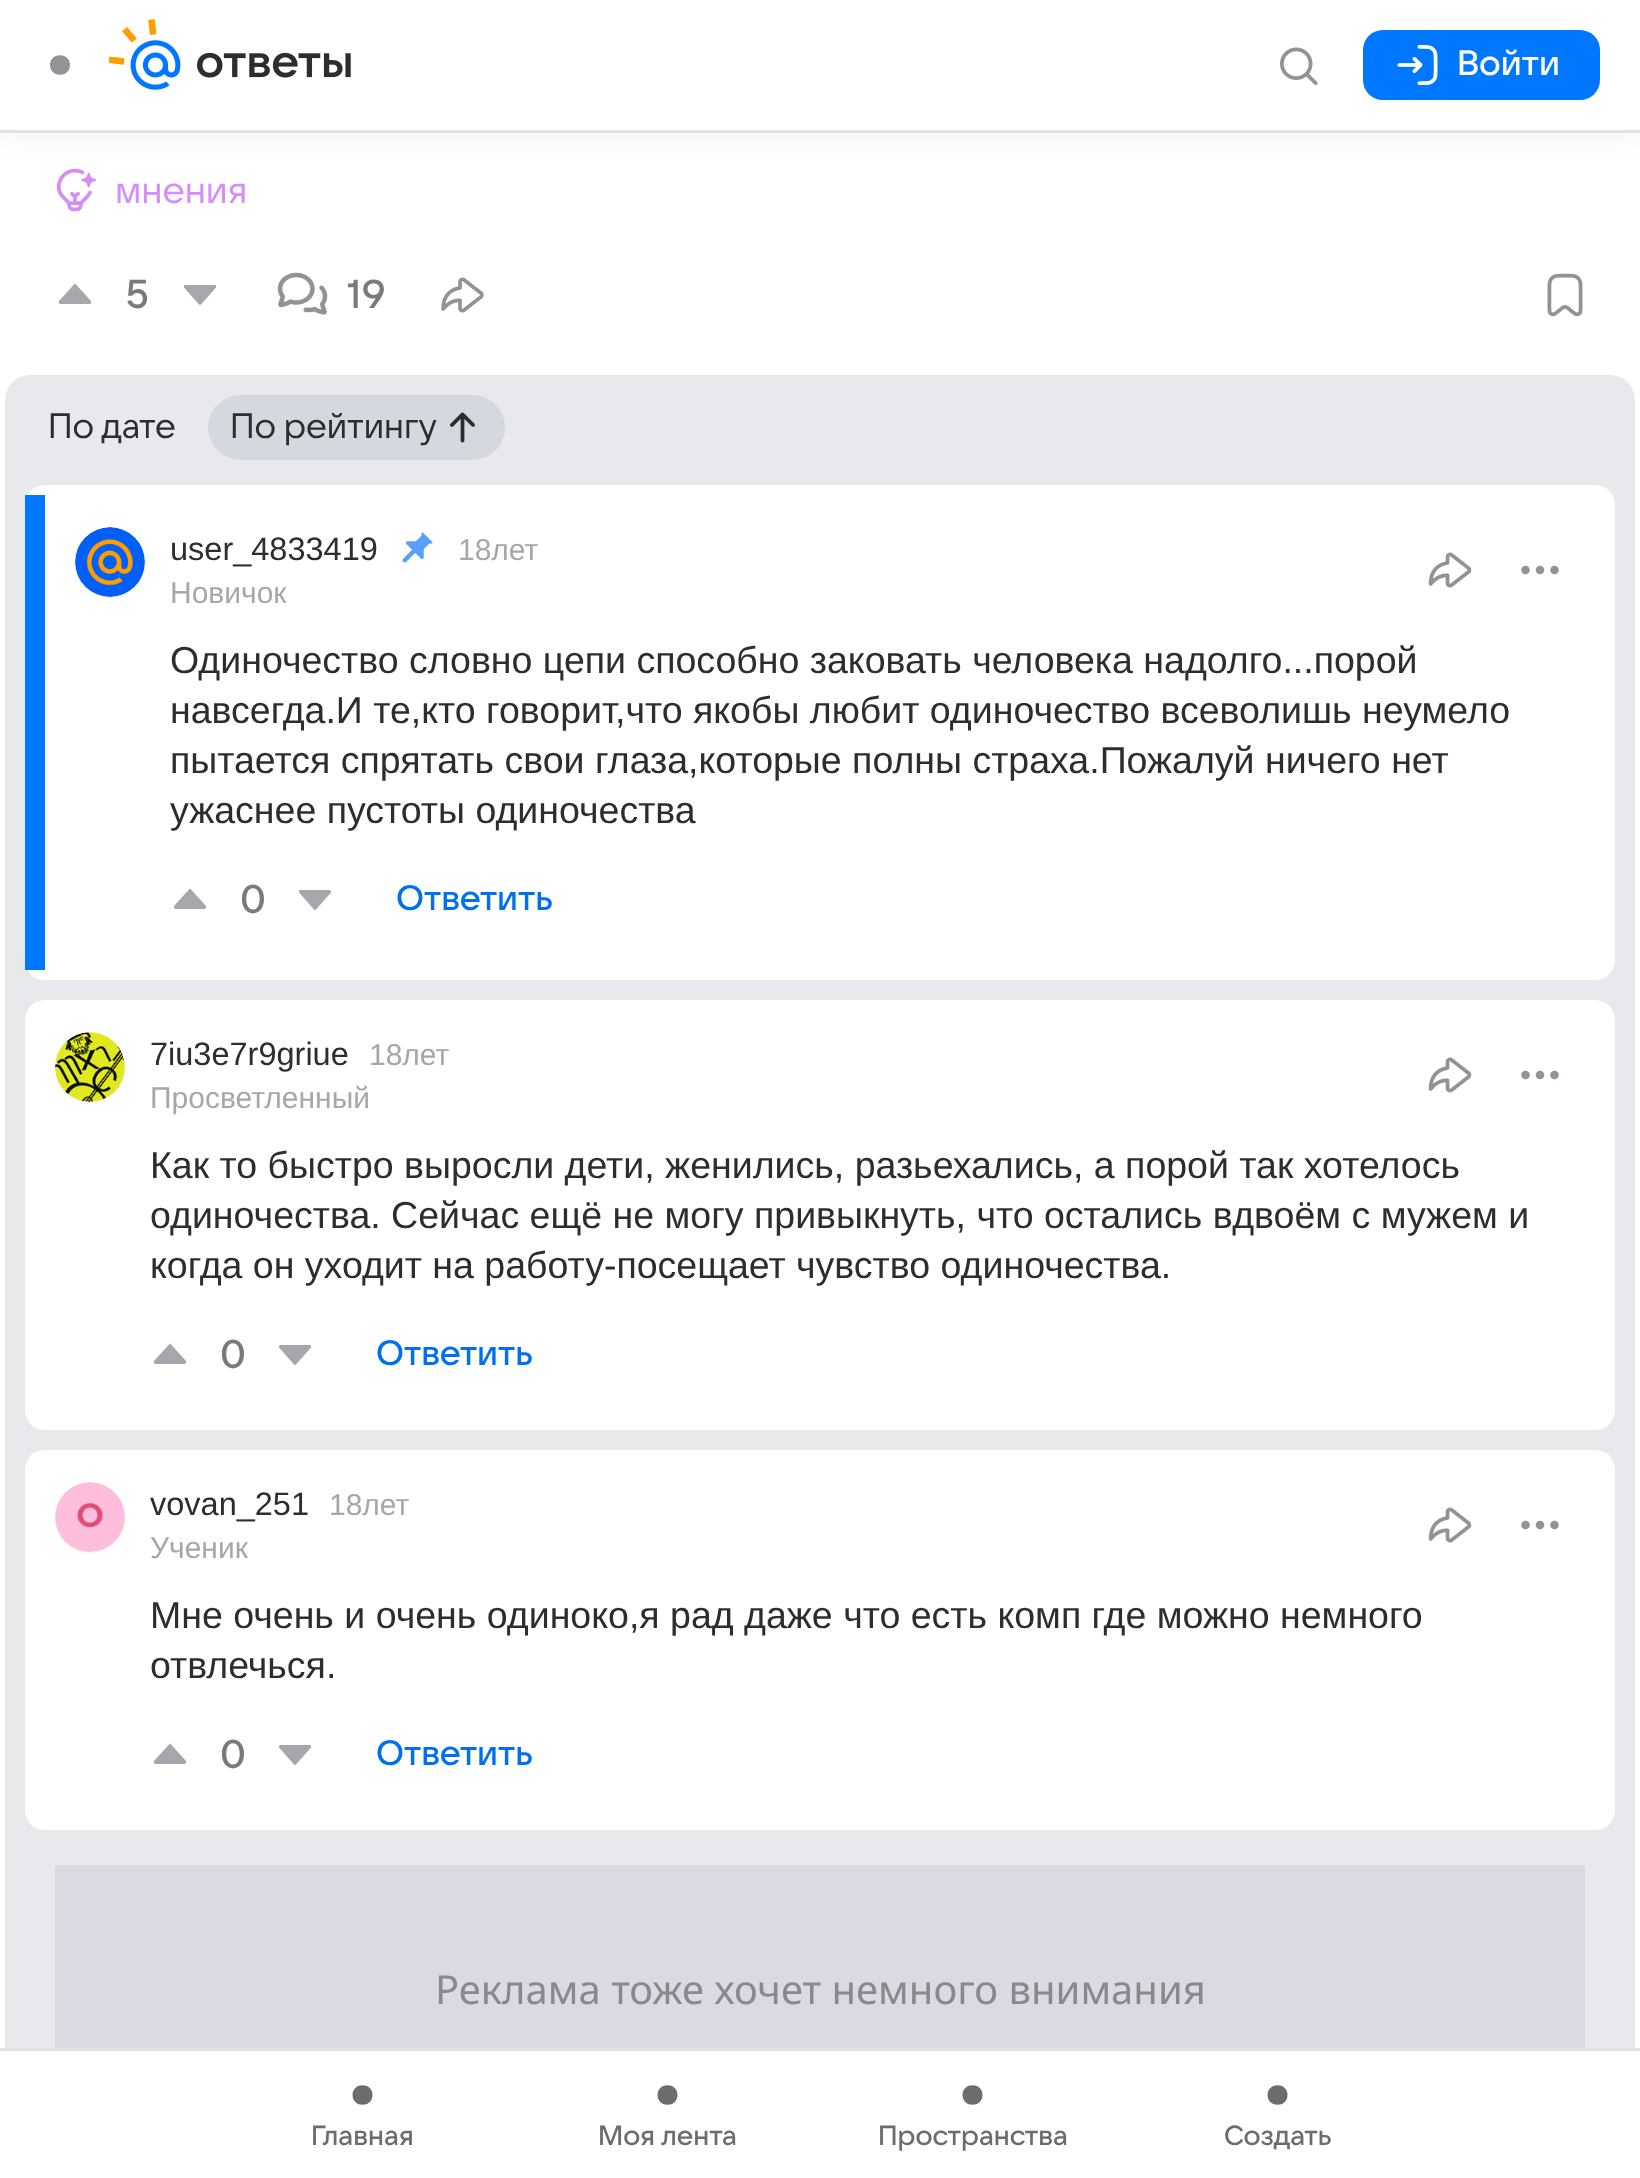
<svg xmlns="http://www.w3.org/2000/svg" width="1640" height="2178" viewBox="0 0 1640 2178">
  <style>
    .t1 { font: 500 35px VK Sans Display; fill: #fff; }
    .t2 { font: 37.5px VK Sans Display; fill: #d48ef7; }
    .t3 { font: 500 40px VK Sans Display; fill: #797a80; }
    .t4 { font: 35px VK Sans Display; fill: #2c2d2e; }
    .t5 { font: 32.5px Liberation Sans; fill: #2c2d2e; }
    .t6 { font: 30px Liberation Sans; fill: #a5a7ad; }
    .t7 { font: 37.5px Liberation Sans; fill: #2c2d2e; }
    .t8 { font: 500 35px VK Sans Display; fill: #0070f0; }
    .t9 { font: 40px Noto Sans; fill: #87898f; }
    .t10 { font: 500 27.5px VK Sans Display; fill: #6b6c6d; }
  </style>
  <rect width="100%" height="100%" fill="#fff"/>
  <image x="56" y="168" width="41" height="44" href="images/4.png"/>
  <rect x="0" y="0" width="1640" height="133" fill="#00103d0f" filter="blur(15px)"/>
  <rect x="0" y="0" width="1640" height="130" fill="#fff"/>
  <rect x="0" y="130" width="1640" height="3" fill="#e0e2e8"/>
  <path d="M70 65C70 78 50 78 50 65C50 52 70 52 70 65" fill="#919399"/>
  <image x="108" y="19" width="243" height="71" href="images/1.png"/>
  <image x="1280" y="47" width="38" height="38" href="images/2.png"/>
  <rect x="1363" y="30" width="237" height="70" rx="20" fill="#07f"/>
  <image x="1397" y="45" width="41" height="40" href="images/3.png"/>
  <text x="1457" y="75" class="t1">Войти</text>
  <text x="115" y="203" class="t2">мнения</text>
  <path d="M60.5 304C59 304 58.5 302 59 301L74 284.5L75 283.5L76 284.5L91 301C91.5 302 91 304 89.5 304Z" fill="#a5a7ad"/>
  <text x="125" y="308" class="t3">5</text>
  <path d="M214.5 285C216 285 216.5 286.5 216 287.5L201 304.5L200 305L199 304.5L184 287.5C183.5 286.5 184 285 185.5 285Z" fill="#a5a7ad"/>
  <image x="277" y="272" width="51" height="43" href="images/5.png"/>
  <text x="347" y="308" class="t3">19</text>
  <image x="441" y="277" width="43" height="36" href="images/6.png"/>
  <image x="1547" y="273" width="36" height="44" href="images/7.png"/>
  <rect x="5" y="375" width="1630" height="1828" rx="25" fill="#e7e9ec"/>
  <text x="48" y="438" class="t4">По дате</text>
  <rect x="208" y="395" width="297" height="65" rx="32.5" fill="#d5d8de"/>
  <text x="230" y="438" class="t4">По рейтингу</text>
  <image x="450" y="412" width="25" height="31" href="images/8.png"/>
  <rect x="25" y="485" width="1590" height="495" rx="20" fill="#fff"/>
  <rect x="25" y="495" width="20" height="475" fill="#07f"/>
  <circle cx="110" cy="563" r="35" fill="#f0f1f3"/>
  <image x="75" y="527" width="70" height="70" href="images/9.png"/>
  <text x="170" y="560" class="t5">user_4833419</text>
  <text x="170" y="603" class="t6">Новичок</text>
  <image x="402" y="532" width="31" height="31" href="images/10.png"/>
  <text x="458" y="560" class="t6">18лет</text>
  <image x="1428" y="552" width="44" height="36" href="images/11.png"/>
  <image x="1521" y="565" width="38" height="10" href="images/12.png"/>
  <text x="170" y="673" class="t7">Одиночество словно цепи способно заковать человека надолго...порой</text>
  <text x="170" y="723" class="t7">навсегда.И те,кто говорит,что якобы любит одиночество всеволишь неумело</text>
  <text x="170" y="773" class="t7">пытается спрятать свои глаза,которые полны страха.Пожалуй ничего нет</text>
  <text x="170" y="823" class="t7">ужаснее пустоты одиночества</text>
  <path d="M175.5 909C174 909 173.5 907 174 906L189 889.5L190 888.5L191 889.5L206 906C206.5 907 206 909 204.5 909Z" fill="#a5a7ad"/>
  <text x="240" y="913" class="t3">0</text>
  <path d="M329.5 890C331 890 331.5 891.5 331 892.5L316 909.5L315 910L314 909.5L299 892.5C298.5 891.5 299 890 300.5 890Z" fill="#a5a7ad"/>
  <text x="396" y="910" class="t8">Ответить</text>
  <rect x="25" y="1000" width="1590" height="430" rx="20" fill="#fff"/>
  <circle cx="90" cy="1068" r="35" fill="#f0f1f3"/>
  <image x="55" y="1032" width="70" height="70" href="images/13.png"/>
  <text x="150" y="1065" class="t5">7iu3e7r9griue</text>
  <text x="150" y="1108" class="t6">Просветленный</text>
  <text x="369" y="1065" class="t6">18лет</text>
  <image x="1428" y="1057" width="44" height="36" href="images/11.png"/>
  <image x="1521" y="1070" width="38" height="10" href="images/12.png"/>
  <text x="150" y="1178" class="t7">Как то быстро выросли дети, женились, разьехались, а порой так хотелось</text>
  <text x="150" y="1228" class="t7">одиночества. Сейчас ещё не могу привыкнуть, что остались вдвоём с мужем и</text>
  <text x="150" y="1278" class="t7">когда он уходит на работу-посещает чувство одиночества.</text>
  <path d="M155.5 1364C154 1364 153.5 1362 154 1361L169 1344.5L170 1343.5L171 1344.5L186 1361C186.5 1362 186 1364 184.5 1364Z" fill="#a5a7ad"/>
  <text x="220" y="1368" class="t3">0</text>
  <path d="M309.5 1345C311 1345 311.5 1346.5 311 1347.5L296 1364.5L295 1365L294 1364.5L279 1347.5C278.5 1346.5 279 1345 280.5 1345Z" fill="#a5a7ad"/>
  <text x="376" y="1365" class="t8">Ответить</text>
  <rect x="25" y="1450" width="1590" height="380" rx="20" fill="#fff"/>
  <circle cx="90" cy="1518" r="35" fill="#f0f1f3"/>
  <image x="55" y="1482" width="70" height="70" href="images/14.png"/>
  <text x="150" y="1515" class="t5">vovan_251</text>
  <text x="150" y="1558" class="t6">Ученик</text>
  <text x="329" y="1515" class="t6">18лет</text>
  <image x="1428" y="1507" width="44" height="36" href="images/11.png"/>
  <image x="1521" y="1520" width="38" height="10" href="images/12.png"/>
  <text x="150" y="1628" class="t7">Мне очень и очень одиноко,я рад даже что есть комп где можно немного</text>
  <text x="150" y="1678" class="t7">отвлечься.</text>
  <path d="M155.5 1764C154 1764 153.5 1762 154 1761L169 1744.5L170 1743.5L171 1744.5L186 1761C186.5 1762 186 1764 184.5 1764Z" fill="#a5a7ad"/>
  <text x="220" y="1768" class="t3">0</text>
  <path d="M309.5 1745C311 1745 311.5 1746.5 311 1747.5L296 1764.5L295 1765L294 1764.5L279 1747.5C278.5 1746.5 279 1745 280.5 1745Z" fill="#a5a7ad"/>
  <text x="376" y="1765" class="t8">Ответить</text>
  <rect x="55" y="1865" width="1530" height="183" fill="#dadbe2"/>
  <text x="435" y="2004" class="t9">Реклама тоже хочет немного внимания</text>
  <rect x="5" y="2051" width="1630" height="127" fill="#fff"/>
  <rect x="0" y="2048" width="1640" height="3" fill="#e0e2e8"/>
  <path d="M372.5 2095C372.5 2108 352.5 2108 352.5 2095C352.5 2082 372.5 2082 372.5 2095" fill="#6b6c6d"/>
  <text x="311" y="2145" class="t10">Главная</text>
  <path d="M677.5 2095C677.5 2108 657.5 2108 657.5 2095C657.5 2082 677.5 2082 677.5 2095" fill="#6b6c6d"/>
  <text x="598" y="2145" class="t10">Моя лента</text>
  <path d="M982.5 2095C982.5 2108 962.5 2108 962.5 2095C962.5 2082 982.5 2082 982.5 2095" fill="#6b6c6d"/>
  <text x="878" y="2145" class="t10">Пространства</text>
  <path d="M1287.5 2095C1287.5 2108 1267.5 2108 1267.5 2095C1267.5 2082 1287.5 2082 1287.5 2095" fill="#6b6c6d"/>
  <text x="1224" y="2145" class="t10">Создать</text>
</svg>
